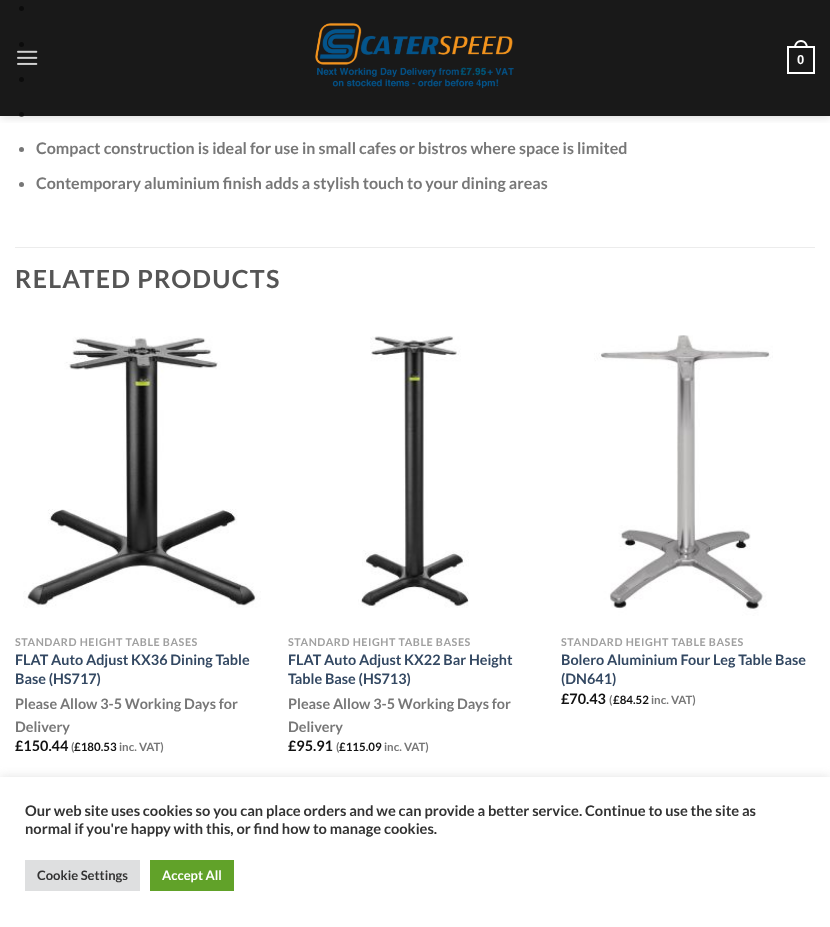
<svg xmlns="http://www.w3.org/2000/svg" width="830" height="927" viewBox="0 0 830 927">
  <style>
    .t1 { font: bold 13px Liberation Sans; fill: #fff; }
    .t2 { font: bold 16px Lato; fill: #777; }
    .t3 { font: bold 25px Lato; letter-spacing: 1.25px; fill: #555; }
    .t4 { font: bold 10.75px Lato; letter-spacing: 0.55px; fill: #a0a0a0; }
    .t5 { font: bold 14.4px Lato; fill: #334862; }
    .t6 { font: bold 14.4px Lato; fill: #777; }
    .t7 { font: bold 14.4px Lato; fill: #111; }
    .t8 { font: bold 11.5px Lato; fill: #777; }
    .t9 { font: bold 11.5px Lato; fill: #111; }
    .t10 { font: bold 14.65px Lato; fill: #333; }
    .t11 { font: bold 13px Lato; fill: #333; }
    .t12 { font: bold 13px Lato; fill: #fff; }
  </style>
  <defs>
    <clipPath id="clip1"><rect x="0" y="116" width="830" height="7"/></clipPath>
  </defs>
  <rect width="100%" height="100%" fill="#fff"/>
  <circle cx="21.5" cy="8.5" r="2.5" fill="#777"/>
  <circle cx="21.5" cy="44.5" r="2.5" fill="#777"/>
  <circle cx="21.5" cy="79.5" r="2.5" fill="#777"/>
  <circle cx="21.5" cy="114.5" r="2.5" fill="#777"/>
  <g clip-path="url(#clip1)">
    <rect x="1" y="1" width="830" height="116" fill="#00000026" filter="blur(5px)"/>
  </g>
  <rect x="0" y="0" width="830" height="116" fill="#000000e6"/>
  <image x="17" y="50" width="21" height="15" href="images/1.png"/>
  <image x="315" y="22" width="199" height="66" href="images/2.png"/>
  <rect x="788" y="47" width="26" height="26" fill="none" stroke="#fff" stroke-width="2"/>
  <path d="M801 40C805.5 40 808 44 808 48H794C794 44 796.5 40 801 40ZM801 42C804.5 42 806 45 806 48H796C796 45 797.5 42 801 42Z" fill="#fff" fill-rule="evenodd"/>
  <text x="797" y="64" class="t1">0</text>
  <circle cx="21.5" cy="149.5" r="2.5" fill="#777"/>
  <text x="36" y="154" class="t2">Compact construction is ideal for use in small cafes or bistros where space is limited</text>
  <circle cx="21.5" cy="184.5" r="2.5" fill="#777"/>
  <text x="36" y="189" class="t2">Contemporary aluminium finish adds a stylish touch to your dining areas</text>
  <rect x="15" y="247" width="800" height="1" fill="#ececec"/>
  <text x="15" y="288" class="t3">RELATED PRODUCTS</text>
  <image x="23" y="336" width="238" height="272" href="images/3.png"/>
  <text x="15" y="646" class="t4">STANDARD HEIGHT TABLE BASES</text>
  <text x="15" y="665" class="t5">FLAT Auto Adjust KX36 Dining Table</text>
  <text x="15" y="684" class="t5">Base (HS717)</text>
  <text x="15" y="709" class="t6">Please Allow 3-5 Working Days for</text>
  <text x="15" y="732" class="t6">Delivery</text>
  <text x="15" y="751" class="t7">£150.44</text>
  <text x="71" y="751" class="t8">(</text>
  <text x="74" y="751" class="t9">£180.53</text>
  <text x="119" y="751" class="t8">inc. VAT)</text>
  <image x="358" y="336" width="111" height="272" href="images/4.png"/>
  <text x="288" y="646" class="t4">STANDARD HEIGHT TABLE BASES</text>
  <text x="288" y="665" class="t5">FLAT Auto Adjust KX22 Bar Height</text>
  <text x="288" y="684" class="t5">Table Base (HS713)</text>
  <text x="288" y="709" class="t6">Please Allow 3-5 Working Days for</text>
  <text x="288" y="732" class="t6">Delivery</text>
  <text x="288" y="751" class="t7">£95.91</text>
  <text x="336" y="751" class="t8">(</text>
  <text x="339" y="751" class="t9">£115.09</text>
  <text x="384" y="751" class="t8">inc. VAT)</text>
  <image x="594" y="335" width="179" height="281" href="images/5.png"/>
  <text x="561" y="646" class="t4">STANDARD HEIGHT TABLE BASES</text>
  <text x="561" y="665" class="t5">Bolero Aluminium Four Leg Table Base</text>
  <text x="561" y="684" class="t5">(DN641)</text>
  <text x="561" y="704" class="t7">£70.43</text>
  <text x="609" y="704" class="t8">(</text>
  <text x="613" y="704" class="t9">£84.52</text>
  <text x="651" y="704" class="t8">inc. VAT)</text>
  <rect x="0" y="776" width="830" height="150" fill="#acabab4d" filter="blur(5px)"/>
  <rect x="0" y="777" width="830" height="150" fill="#fff"/>
  <text x="25" y="816" class="t10">Our web site uses cookies so you can place orders and we can provide a better service. Continue to use the site as</text>
  <text x="25" y="834" class="t10">normal if you're happy with this, or find how to manage cookies.</text>
  <rect x="25" y="860" width="115" height="31" fill="#dedfe0"/>
  <text x="37" y="880" class="t11">Cookie Settings</text>
  <rect x="150" y="860" width="84" height="31" fill="#61a229"/>
  <text x="162" y="880" class="t12">Accept All</text>
</svg>
